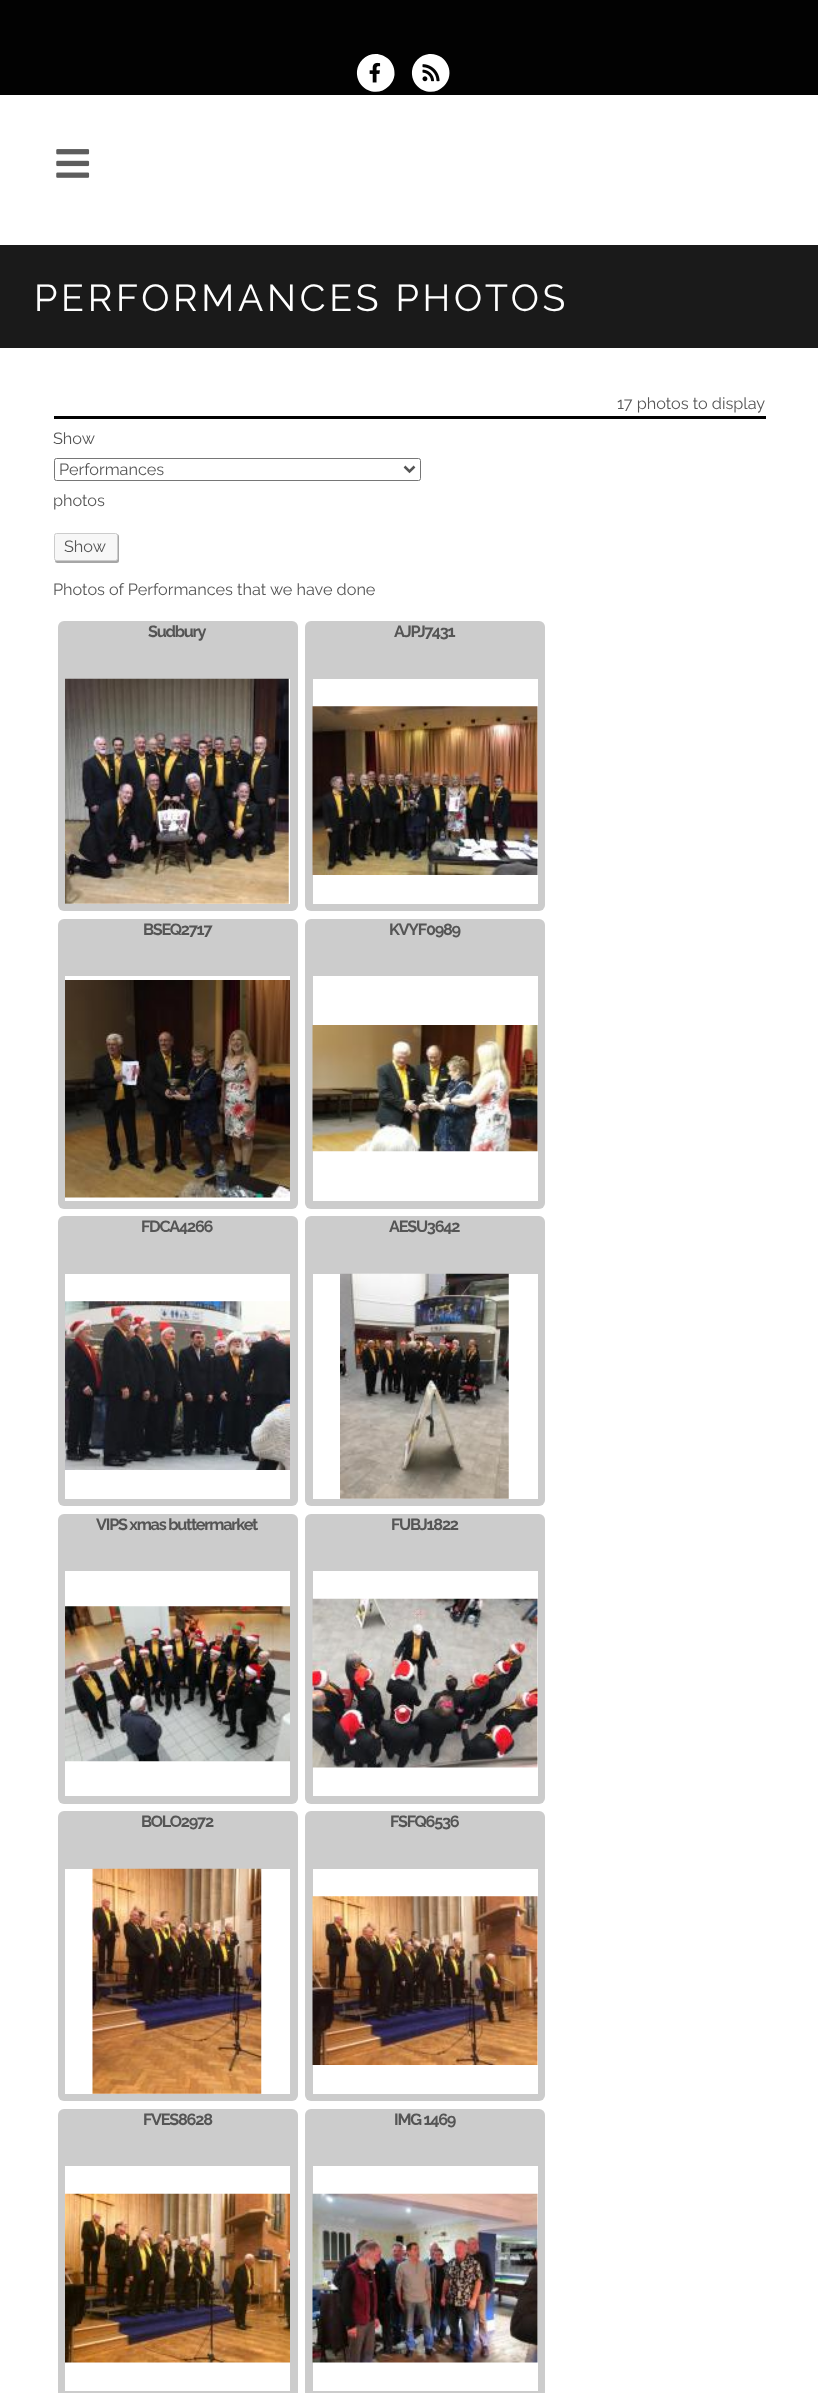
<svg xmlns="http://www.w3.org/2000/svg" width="818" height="2393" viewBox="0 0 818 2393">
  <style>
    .t1 { font: 37.5px Raleway; letter-spacing: 3.75px; fill: #fff; }
    .t2 { font: 16.25px Raleway; fill: #555; }
    .t3 { font: bold 16.25px Raleway; letter-spacing: -1.25px; fill: #555; }
  </style>
  <rect width="100%" height="100%" fill="#fff"/>
  <rect x="0" y="0" width="818" height="95" fill="#020202"/>
  <path d="M362.5 59.5C375 47 396 57 394.5 75C394 79 392 83 389 86C376.5 99 355.5 88.5 357 71C357.5 66.5 359.5 62.5 362.5 59.5Z" fill="#fff"/>
  <image x="369" y="62" width="12" height="21" href="images/1.png"/>
  <path d="M417.5 59.5C420.5 56.5 424.5 54.5 429 54C446.5 52.5 456.5 73.5 444 86C431.5 99 410.5 88.5 412 71C412.5 66.5 414.5 62.5 417.5 59.5Z" fill="#fff"/>
  <image x="422" y="64" width="18" height="18" href="images/2.png"/>
  <image x="56" y="149" width="34" height="29" href="images/3.png"/>
  <rect x="0" y="245" width="818" height="103" fill="#1a1a1a"/>
  <text x="34" y="311" class="t1">PERFORMANCES PHOTOS</text>
  <text x="617" y="409" class="t2">17 photos to display</text>
  <rect x="54" y="416" width="712" height="3" fill="#020202"/>
  <text x="53" y="444" class="t2">Show</text>
  <rect x="54.5" y="458.5" width="366" height="22" rx="2" fill="none" stroke="#767676"/>
  <path d="M404.5 466.5L409.5 471.5L414.5 466.5" fill="none" stroke="#555" stroke-width="2.5"/>
  <text x="59" y="475" class="t2">Performances</text>
  <text x="53" y="506" class="t2">photos</text>
  <rect x="55" y="534" width="64" height="29" rx="2.5" fill="#00000059" filter="blur(0.5px)"/>
  <rect x="54.5" y="533.5" width="63" height="27" rx="2" fill="#f7f7f7" stroke="#ccc"/>
  <text x="64" y="552" class="t2">Show</text>
  <text x="53" y="595" class="t2">Photos of Performances that we have done</text>
  <rect x="58" y="621" width="240" height="290" rx="6" fill="#ccc"/>
  <text x="148" y="637" class="t3">Sudbury</text>
  <rect x="65" y="679" width="225" height="225" fill="#fff"/>
  <image x="65" y="678" width="224" height="226" href="images/4.png"/>
  <rect x="305" y="621" width="240" height="290" rx="6" fill="#ccc"/>
  <text x="394" y="637" class="t3">AJPJ7431</text>
  <rect x="313" y="679" width="225" height="225" fill="#fff"/>
  <image x="312" y="706" width="226" height="169" href="images/5.png"/>
  <rect x="58" y="919" width="240" height="290" rx="6" fill="#ccc"/>
  <text x="143" y="935" class="t3">BSEQ2717</text>
  <rect x="65" y="976" width="225" height="225" fill="#fff"/>
  <image x="65" y="980" width="225" height="218" href="images/6.png"/>
  <rect x="305" y="919" width="240" height="290" rx="6" fill="#ccc"/>
  <text x="389" y="935" class="t3">KVYF0989</text>
  <rect x="313" y="976" width="225" height="225" fill="#fff"/>
  <image x="312" y="1025" width="226" height="127" href="images/7.png"/>
  <rect x="58" y="1216" width="240" height="290" rx="6" fill="#ccc"/>
  <text x="141" y="1232" class="t3">FDCA4266</text>
  <rect x="65" y="1274" width="225" height="225" fill="#fff"/>
  <image x="65" y="1301" width="225" height="169" href="images/8.png"/>
  <rect x="305" y="1216" width="240" height="290" rx="6" fill="#ccc"/>
  <text x="389" y="1232" class="t3">AESU3642</text>
  <rect x="313" y="1274" width="225" height="225" fill="#fff"/>
  <image x="340" y="1273" width="169" height="226" href="images/9.png"/>
  <rect x="58" y="1514" width="240" height="290" rx="6" fill="#ccc"/>
  <text x="96" y="1530" class="t3">VIPS xmas buttermarket</text>
  <rect x="65" y="1571" width="225" height="225" fill="#fff"/>
  <image x="65" y="1606" width="225" height="156" href="images/10.png"/>
  <rect x="305" y="1514" width="240" height="290" rx="6" fill="#ccc"/>
  <text x="391" y="1530" class="t3">FUBJ1822</text>
  <rect x="313" y="1571" width="225" height="225" fill="#fff"/>
  <image x="312" y="1598" width="226" height="170" href="images/11.png"/>
  <rect x="58" y="1811" width="240" height="290" rx="6" fill="#ccc"/>
  <text x="141" y="1827" class="t3">BOLO2972</text>
  <rect x="65" y="1869" width="225" height="225" fill="#fff"/>
  <image x="92" y="1868" width="170" height="226" href="images/12.png"/>
  <rect x="305" y="1811" width="240" height="290" rx="6" fill="#ccc"/>
  <text x="390" y="1827" class="t3">FSFQ6536</text>
  <rect x="313" y="1869" width="225" height="225" fill="#fff"/>
  <image x="312" y="1896" width="226" height="169" href="images/13.png"/>
  <rect x="58" y="2109" width="240" height="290" rx="6" fill="#ccc"/>
  <text x="143" y="2125" class="t3">FVES8628</text>
  <rect x="65" y="2166" width="225" height="225" fill="#fff"/>
  <image x="65" y="2193" width="225" height="170" href="images/14.png"/>
  <rect x="305" y="2109" width="240" height="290" rx="6" fill="#ccc"/>
  <text x="394" y="2125" class="t3">IMG 1469</text>
  <rect x="313" y="2166" width="225" height="225" fill="#fff"/>
  <image x="312" y="2193" width="226" height="170" href="images/15.png"/>
</svg>
